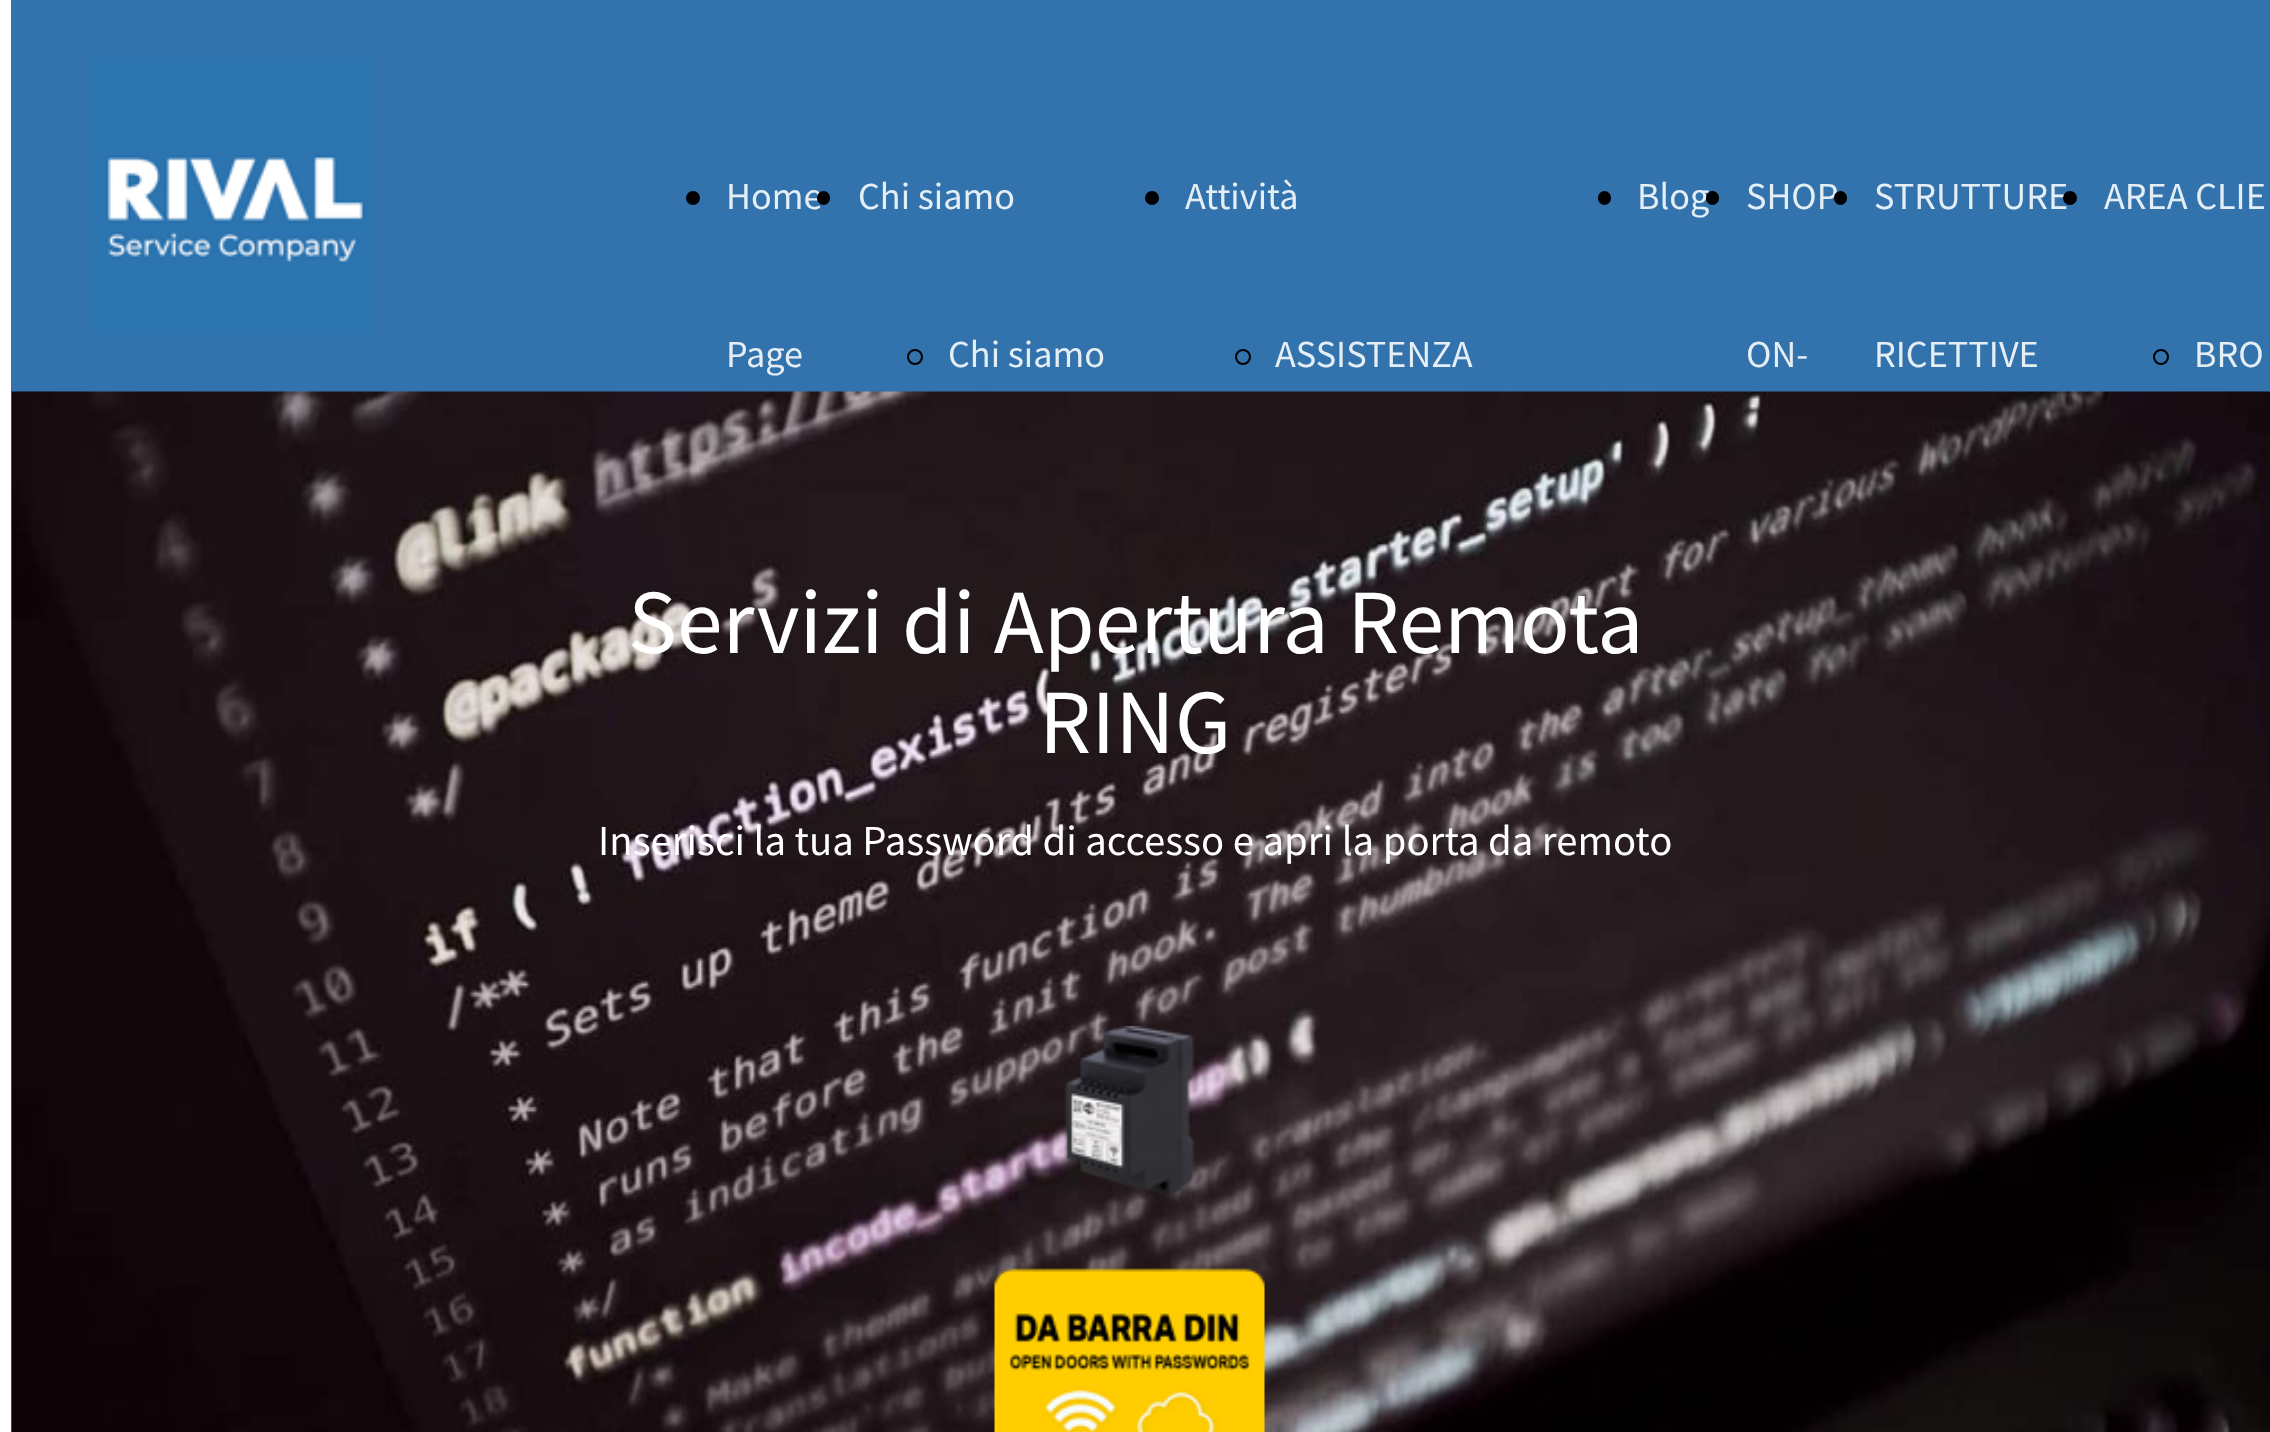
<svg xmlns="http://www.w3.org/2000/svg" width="2270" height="1432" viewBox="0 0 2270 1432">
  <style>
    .t1 { font: 38.25px Source Sans Pro; fill: #e5eef5; }
    .t2 { font: 91.75px Source Sans Pro; fill: #fff; }
    .t3 { font: 42.75px Source Sans Pro; fill: #fff; }
  </style>
  <rect width="100%" height="100%" fill="#fff"/>
  <rect x="11" y="0" width="2259" height="392" fill="#3273ad"/>
  <image x="92" y="56" width="279" height="279" href="images/1.png"/>
  <circle cx="693" cy="198" r="7" fill="#000"/>
  <text x="726" y="209" class="t1">Home</text>
  <text x="726" y="367" class="t1">Page</text>
  <rect x="817" y="191" width="13" height="14" rx="6.5" fill="#000"/>
  <text x="858" y="209" class="t1">Chi siamo</text>
  <circle cx="915" cy="357" r="7" fill="none" stroke="#000" stroke-width="2"/>
  <text x="948" y="367" class="t1">Chi siamo</text>
  <circle cx="1152" cy="198" r="7" fill="#000"/>
  <text x="1185" y="209" class="t1">Attività</text>
  <circle cx="1243" cy="357" r="7" fill="none" stroke="#000" stroke-width="2"/>
  <text x="1275" y="367" class="t1">ASSISTENZA</text>
  <rect x="1598" y="191" width="13" height="14" rx="6.5" fill="#000"/>
  <text x="1637" y="209" class="t1">Blog</text>
  <rect x="1706" y="191" width="13" height="14" rx="6.5" fill="#000"/>
  <text x="1746" y="209" class="t1">SHOP</text>
  <text x="1746" y="367" class="t1">ON-</text>
  <rect x="1834" y="191" width="13" height="14" rx="6.5" fill="#000"/>
  <text x="1874" y="209" class="t1">STRUTTURE</text>
  <text x="1874" y="367" class="t1">RICETTIVE</text>
  <circle cx="2070" cy="198" r="7" fill="#000"/>
  <text x="2104" y="209" class="t1">AREA CLIE</text>
  <circle cx="2161" cy="357" r="7" fill="none" stroke="#000" stroke-width="2"/>
  <text x="2194" y="367" class="t1">BRO</text>
  <image x="11" y="391" width="2259" height="1041" href="images/2.png"/>
  <text x="628" y="653" class="t2">Servizi di Apertura Remota</text>
  <text x="1039" y="753" class="t2">RING</text>
  <text x="598" y="855" class="t3">Inserisci la tua Password di accesso e apri la porta da remoto</text>
  <image x="994" y="1026" width="271" height="406" href="images/3.png"/>
</svg>
